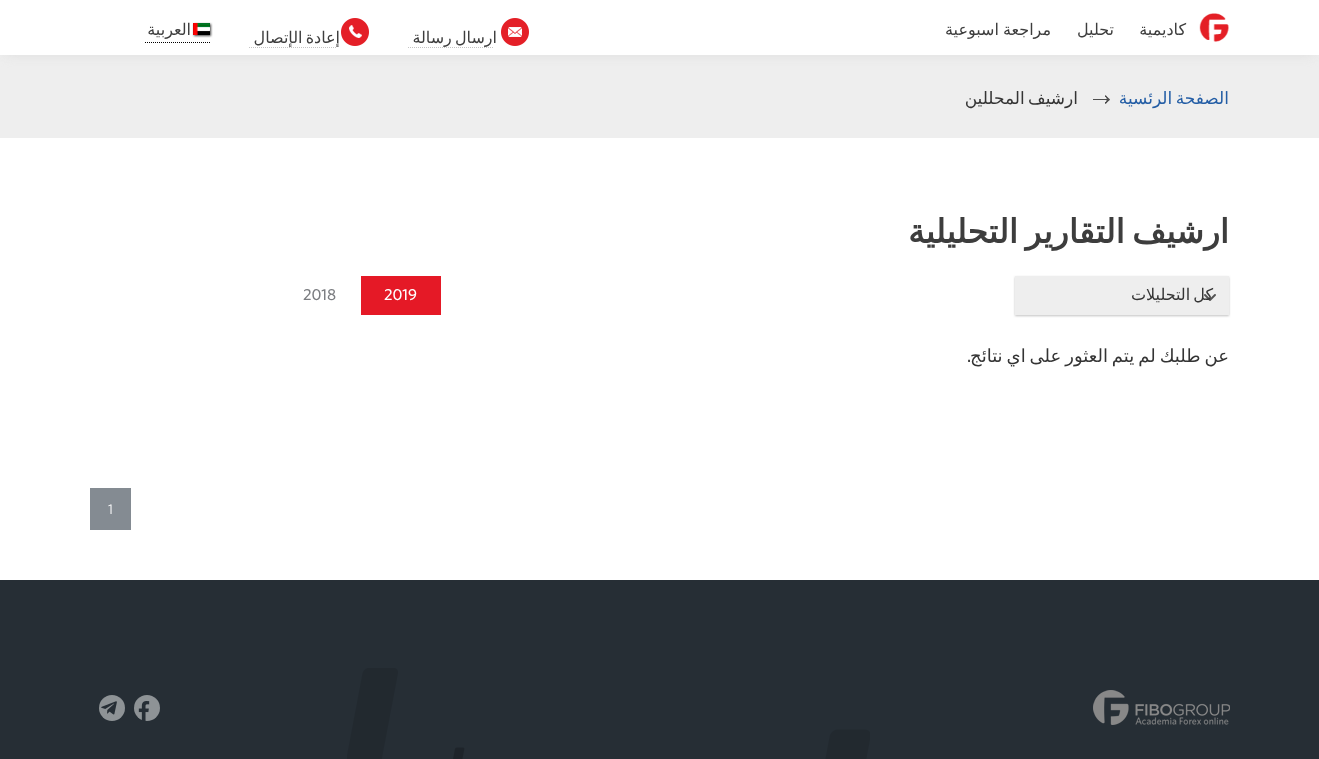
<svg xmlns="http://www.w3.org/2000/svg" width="1319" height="759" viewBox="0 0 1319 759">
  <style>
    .t1 { font: 16px DejaVu Sans; direction: rtl; fill: #3d3d3d; }
    .t2 { font: 16px DejaVu Sans; letter-spacing: 0.4px; direction: rtl; fill: #3d3d3d; }
    .t3 { font: 17px DejaVu Sans; direction: rtl; fill: #235da5; }
    .t4 { font: 17px DejaVu Sans; direction: rtl; fill: #343434; }
    .t5 { font: bold 33px DejaVu Sans; direction: rtl; fill: #3d3d3d; }
    .t6 { font: 16px DejaVu Sans; direction: rtl; fill: #343434; }
    .t7 { font: 500 16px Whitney; fill: #fff; }
    .t8 { font: 500 16px Whitney; fill: #7b7d81; }
    .t9 { font: 18px DejaVu Sans; direction: rtl; fill: #343434; }
    .t10 { font: 500 18px Whitney; direction: rtl; fill: #343434; }
    .t11 { font: 14px Whitney; fill: #fff; }
  </style>
  <rect width="100%" height="100%" fill="#fff"/>
  <rect x="0" y="55" width="1319" height="83" fill="#eee"/>
  <rect x="5" y="9" width="1309" height="45" fill="#dcdcdc" filter="blur(6px)"/>
  <rect x="0" y="0" width="1319" height="55" fill="#fff"/>
  <image x="1199" y="13" width="30" height="29" href="images/1.png"/>
  <text x="1186" y="35" class="t1">كاديمية</text>
  <text x="1114" y="35" class="t1">تحليل</text>
  <text x="1051" y="35" word-spacing="-1" class="t1">مراجعة اسبوعية</text>
  <image x="501" y="18" width="28" height="28" href="images/2.png"/>
  <text x="497" y="43" word-spacing="-2" class="t2">ارسال رسالة</text>
  <path d="M408 47.5H493" fill="none" stroke="#c4c4c4" stroke-dasharray="1 1"/>
  <image x="341" y="18" width="28" height="28" href="images/3.png"/>
  <text x="340" y="43" word-spacing="-2" class="t2">إعادة الإتصال</text>
  <path d="M249 47.5H336" fill="none" stroke="#c4c4c4" stroke-dasharray="1 1"/>
  <path d="M145 42.5H210" fill="none" stroke="#000" stroke-dasharray="1 1"/>
  <rect x="194" y="24" width="17" height="12" fill="#484848" filter="blur(1px)"/>
  <image x="193" y="23" width="17" height="12" href="images/4.png"/>
  <text x="191" y="35" class="t2">العربية</text>
  <text x="1229" y="104" word-spacing="-2" class="t3">الصفحة الرئسية</text>
  <image x="1093" y="95" width="17" height="9" href="images/5.png"/>
  <text x="1078" y="104" word-spacing="-2" class="t4">ارشيف المحللين</text>
  <text x="1229" y="243" word-spacing="-3" class="t5">ارشيف التقارير التحليلية</text>
  <rect x="1015" y="277" width="214" height="39" fill="#c1c1c1" filter="blur(1px)"/>
  <rect x="1015" y="276" width="214" height="39" fill="#eee"/>
  <image x="1204" y="294" width="12" height="7" href="images/6.png"/>
  <text x="1213" y="300" word-spacing="-2" class="t6">كل التحليلات</text>
  <rect x="361" y="276" width="80" height="39" fill="#e51926"/>
  <text x="384" y="300" class="t7">2019</text>
  <text x="303" y="300" class="t8">2018</text>
  <text x="1229" y="362" word-spacing="-1.75" class="t9">عن طلبك لم يتم العثور على اي نتائج</text>
  <text x="971" y="362" class="t10">.</text>
  <rect x="90" y="488" width="41" height="42" fill="#848b92"/>
  <text x="108" y="514" class="t11">1</text>
  <rect x="0" y="580" width="1319" height="179" fill="#262e35"/>
  <image x="347" y="668" width="523" height="91" href="images/7.png"/>
  <image x="1093" y="690" width="137" height="35" href="images/8.png"/>
  <circle cx="147" cy="708" r="13" fill="#8e9396"/>
  <image x="138" y="701" width="12" height="20" href="images/9.png"/>
  <circle cx="112" cy="708" r="13" fill="#8e9396"/>
  <image x="101" y="701" width="16" height="14" href="images/10.png"/>
</svg>
